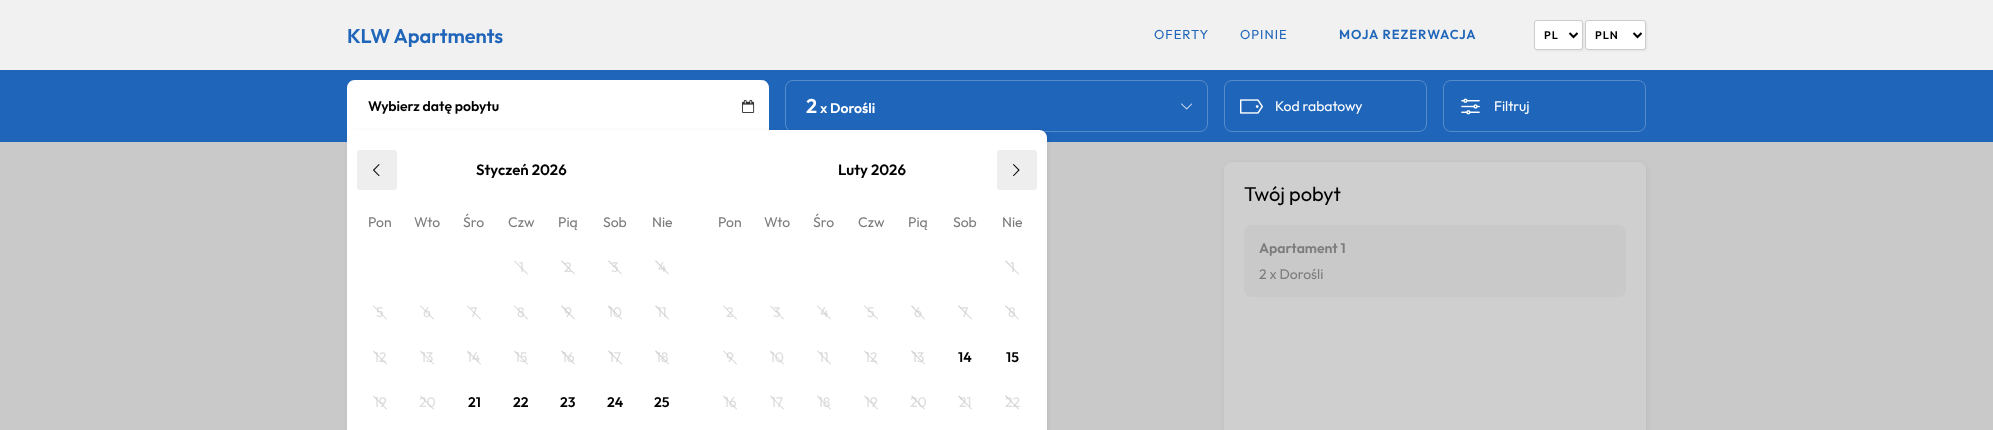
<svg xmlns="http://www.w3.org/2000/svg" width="1993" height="430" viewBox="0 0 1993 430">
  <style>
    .t1 { font: 600 20px Outfit; fill: #1f65b9; }
    .t2 { font: 13px Outfit; letter-spacing: 1px; fill: #1f65b9; }
    .t3 { font: 600 13px Outfit; letter-spacing: 1px; fill: #1f65b9; }
    .t4 { font: 600 11px Outfit; letter-spacing: 1px; fill: #000; }
    .t5 { font: 600 20px Outfit; fill: #fff; }
    .t6 { font: 600 14px Outfit; fill: #fff; }
    .t7 { font: 600 14px Outfit; fill: #000; }
    .t8 { font: 600 15px Outfit; fill: #000; }
    .t9 { font: 14px Outfit; fill: #7c7c7c; }
    .t10 { font: 14px Outfit; fill: #ddd; }
    .t11 { font: 14px Outfit; fill: #fff; }
    .t12 { font: 20px Outfit; fill: #000; }
    .t13 { font: 600 14px Outfit; fill: #7c7c7c; }
  </style>
  <rect width="100%" height="100%" fill="#c9c9c9"/>
  <rect x="0" y="0" width="1993" height="70" fill="#f1f1f1"/>
  <text x="347" y="43" class="t1">KLW Apartments</text>
  <text x="1154" y="39" class="t2">OFERTY</text>
  <text x="1240" y="39" class="t2">OPINIE</text>
  <text x="1339" y="39" class="t3">MOJA REZERWACJA</text>
  <rect x="1535" y="21" width="49" height="30" rx="3" fill="#0000000f" filter="blur(1px)"/>
  <rect x="1534.5" y="20.5" width="48" height="29" rx="2.5" fill="#fff" stroke="#ccc"/>
  <path d="M1569.5 33L1573.5 37L1577.5 33" fill="none" stroke="#000" stroke-width="2"/>
  <text x="1544" y="39" class="t4">PL</text>
  <rect x="1586" y="21" width="61" height="30" rx="3" fill="#0000000f" filter="blur(1px)"/>
  <rect x="1585.5" y="20.5" width="60" height="29" rx="2.5" fill="#fff" stroke="#ccc"/>
  <path d="M1633.5 33L1637.5 37L1641.5 33" fill="none" stroke="#000" stroke-width="2"/>
  <text x="1595" y="39" class="t4">PLN</text>
  <rect x="0" y="70" width="1993" height="72" fill="#1f65b9"/>
  <rect x="785.5" y="80.5" width="422" height="51" rx="7.5" fill="none" stroke="#578ccb"/>
  <text x="806" y="113" class="t5">2</text>
  <text x="820" y="113" class="t6">x Dorośli</text>
  <image x="1181" y="103" width="12" height="7" href="images/1.png"/>
  <path d="M355 80H761C765.5 80 769 83.5 769 88V132H347V88C347 83.5 350.5 80 355 80Z" fill="#fff"/>
  <path d="M355 80.5H761C765 80.5 768.5 84 768.5 88V131.5H347.5V88C347.5 84 351 80.5 355 80.5Z" fill="none" stroke="#ffffff40"/>
  <text x="368" y="111" class="t7">Wybierz datę pobytu</text>
  <image x="742" y="99" width="13" height="14" href="images/2.png"/>
  <rect x="348" y="131" width="700" height="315" rx="8" fill="#0000000f" filter="blur(2.5px)"/>
  <path d="M347 130H1039C1043.5 130 1047 133.5 1047 138V430C1047 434.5 1043.5 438 1039 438H355C350.5 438 347 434.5 347 430Z" fill="#fff"/>
  <rect x="357" y="150" width="40" height="40" rx="3" fill="#eee"/>
  <image x="373" y="164" width="7" height="12" href="images/3.png"/>
  <rect x="997" y="150" width="40" height="40" rx="3" fill="#eee"/>
  <image x="1013" y="164" width="7" height="13" href="images/4.png"/>
  <text x="476" y="175" class="t8">Styczeń 2026</text>
  <text x="368" y="227" class="t9">Pon</text>
  <text x="414" y="227" class="t9">Wto</text>
  <text x="463" y="227" class="t9">Śro</text>
  <text x="508" y="227" class="t9">Czw</text>
  <text x="558" y="227" class="t9">Pią</text>
  <text x="603" y="227" class="t9">Sob</text>
  <text x="652" y="227" class="t9">Nie</text>
  <text x="519" y="272" class="t10">1</text>
  <path d="M514.5 260.5L528 274L527.5 274.5L514 261Z" fill="#ccc"/>
  <text x="564" y="272" class="t10">2</text>
  <path d="M562 260.5L575 274L574.5 274.5L561 261Z" fill="#ccc"/>
  <text x="611" y="272" class="t10">3</text>
  <path d="M609 260.5L622 274L621.5 274.5L608 261Z" fill="#ccc"/>
  <text x="658" y="272" class="t10">4</text>
  <path d="M656 260.5L669 274L668.5 274.5L655 261Z" fill="#ccc"/>
  <text x="376" y="317" class="t10">5</text>
  <path d="M373.5 305.5L387 319L386.5 319.5L373 306Z" fill="#ccc"/>
  <text x="423" y="317" class="t10">6</text>
  <path d="M420.5 305.5L434 319L433.5 319.5L420 306Z" fill="#ccc"/>
  <text x="470" y="317" class="t10">7</text>
  <path d="M467.5 305.5L481 319L480.5 319.5L467 306Z" fill="#ccc"/>
  <text x="517" y="317" class="t10">8</text>
  <path d="M514.5 305.5L528 319L527.5 319.5L514 306Z" fill="#ccc"/>
  <text x="564" y="317" class="t10">9</text>
  <path d="M562 305.5L575 319L574.5 319.5L561 306Z" fill="#ccc"/>
  <text x="608" y="317" class="t10">10</text>
  <path d="M609 305.5L622 319L621.5 319.5L608 306Z" fill="#ccc"/>
  <text x="657" y="317" class="t10">11</text>
  <path d="M656 305.5L669 319L668.5 319.5L655 306Z" fill="#ccc"/>
  <text x="374" y="362" class="t10">12</text>
  <path d="M373.5 350.5L387 364L386.5 364.5L373 351Z" fill="#ccc"/>
  <text x="421" y="362" class="t10">13</text>
  <path d="M420.5 350.5L434 364L433.5 364.5L420 351Z" fill="#ccc"/>
  <text x="467" y="362" class="t10">14</text>
  <path d="M467.5 350.5L481 364L480.5 364.5L467 351Z" fill="#ccc"/>
  <text x="515" y="362" class="t10">15</text>
  <path d="M514.5 350.5L528 364L527.5 364.5L514 351Z" fill="#ccc"/>
  <text x="562" y="362" class="t10">16</text>
  <path d="M562 350.5L575 364L574.5 364.5L561 351Z" fill="#ccc"/>
  <text x="609" y="362" class="t10">17</text>
  <path d="M609 350.5L622 364L621.5 364.5L608 351Z" fill="#ccc"/>
  <text x="656" y="362" class="t10">18</text>
  <path d="M656 350.5L669 364L668.5 364.5L655 351Z" fill="#ccc"/>
  <text x="374" y="407" class="t10">19</text>
  <path d="M373.5 395.5L387 409L386.5 409.5L373 396Z" fill="#ccc"/>
  <text x="419" y="407" class="t10">20</text>
  <path d="M420.5 395.5L434 409L433.5 409.5L420 396Z" fill="#ccc"/>
  <text x="468" y="407" class="t7">21</text>
  <text x="513" y="407" class="t7">22</text>
  <text x="560" y="407" class="t7">23</text>
  <text x="607" y="407" class="t7">24</text>
  <text x="654" y="407" class="t7">25</text>
  <text x="838" y="175" class="t8">Luty 2026</text>
  <text x="718" y="227" class="t9">Pon</text>
  <text x="764" y="227" class="t9">Wto</text>
  <text x="813" y="227" class="t9">Śro</text>
  <text x="858" y="227" class="t9">Czw</text>
  <text x="908" y="227" class="t9">Pią</text>
  <text x="953" y="227" class="t9">Sob</text>
  <text x="1002" y="227" class="t9">Nie</text>
  <text x="1010" y="272" class="t10">1</text>
  <path d="M1006 260.5L1019 274L1018.5 274.5L1005 261Z" fill="#ccc"/>
  <text x="726" y="317" class="t10">2</text>
  <path d="M723.5 305.5L737 319L736.5 319.5L723 306Z" fill="#ccc"/>
  <text x="773" y="317" class="t10">3</text>
  <path d="M770.5 305.5L784 319L783.5 319.5L770 306Z" fill="#ccc"/>
  <text x="820" y="317" class="t10">4</text>
  <path d="M817.5 305.5L831 319L830.5 319.5L817 306Z" fill="#ccc"/>
  <text x="867" y="317" class="t10">5</text>
  <path d="M864.5 305.5L878 319L877.5 319.5L864 306Z" fill="#ccc"/>
  <text x="914" y="317" class="t10">6</text>
  <path d="M912 305.5L925 319L924.5 319.5L911 306Z" fill="#ccc"/>
  <text x="961" y="317" class="t10">7</text>
  <path d="M959 305.5L972 319L971.5 319.5L958 306Z" fill="#ccc"/>
  <text x="1008" y="317" class="t10">8</text>
  <path d="M1006 305.5L1019 319L1018.5 319.5L1005 306Z" fill="#ccc"/>
  <text x="726" y="362" class="t10">9</text>
  <path d="M723.5 350.5L737 364L736.5 364.5L723 351Z" fill="#ccc"/>
  <text x="770" y="362" class="t10">10</text>
  <path d="M770.5 350.5L784 364L783.5 364.5L770 351Z" fill="#ccc"/>
  <text x="819" y="362" class="t10">11</text>
  <path d="M817.5 350.5L831 364L830.5 364.5L817 351Z" fill="#ccc"/>
  <text x="865" y="362" class="t10">12</text>
  <path d="M864.5 350.5L878 364L877.5 364.5L864 351Z" fill="#ccc"/>
  <text x="912" y="362" class="t10">13</text>
  <path d="M912 350.5L925 364L924.5 364.5L911 351Z" fill="#ccc"/>
  <text x="958" y="362" class="t7">14</text>
  <text x="1006" y="362" class="t7">15</text>
  <text x="724" y="407" class="t10">16</text>
  <path d="M723.5 395.5L737 409L736.5 409.5L723 396Z" fill="#ccc"/>
  <text x="771" y="407" class="t10">17</text>
  <path d="M770.5 395.5L784 409L783.5 409.5L770 396Z" fill="#ccc"/>
  <text x="818" y="407" class="t10">18</text>
  <path d="M817.5 395.5L831 409L830.5 409.5L817 396Z" fill="#ccc"/>
  <text x="865" y="407" class="t10">19</text>
  <path d="M864.5 395.5L878 409L877.5 409.5L864 396Z" fill="#ccc"/>
  <text x="910" y="407" class="t10">20</text>
  <path d="M912 395.5L925 409L924.5 409.5L911 396Z" fill="#ccc"/>
  <text x="959" y="407" class="t10">21</text>
  <path d="M959 395.5L972 409L971.5 409.5L958 396Z" fill="#ccc"/>
  <text x="1005" y="407" class="t10">22</text>
  <path d="M1006 395.5L1019 409L1018.5 409.5L1005 396Z" fill="#ccc"/>
  <rect x="1224.5" y="80.5" width="202" height="51" rx="7.5" fill="none" stroke="#578ccb"/>
  <image x="1240" y="99" width="23" height="15" href="images/5.png"/>
  <text x="1275" y="111" class="t11">Kod rabatowy</text>
  <rect x="1443.5" y="80.5" width="202" height="51" rx="7.5" fill="none" stroke="#578ccb"/>
  <image x="1461" y="98" width="19" height="17" href="images/6.png"/>
  <text x="1494" y="111" class="t11">Filtruj</text>
  <rect x="1225" y="163" width="422" height="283" rx="8" fill="#0000000f" filter="blur(2.5px)"/>
  <rect x="1224" y="162" width="422" height="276" rx="8" fill="#cfcfcf"/>
  <text x="1244" y="201" class="t12">Twój pobyt</text>
  <rect x="1244" y="225" width="382" height="72" rx="8" fill="#c9c9c9"/>
  <text x="1259" y="253" class="t13">Apartament 1</text>
  <text x="1259" y="279" class="t9">2 x Dorośli</text>
</svg>
